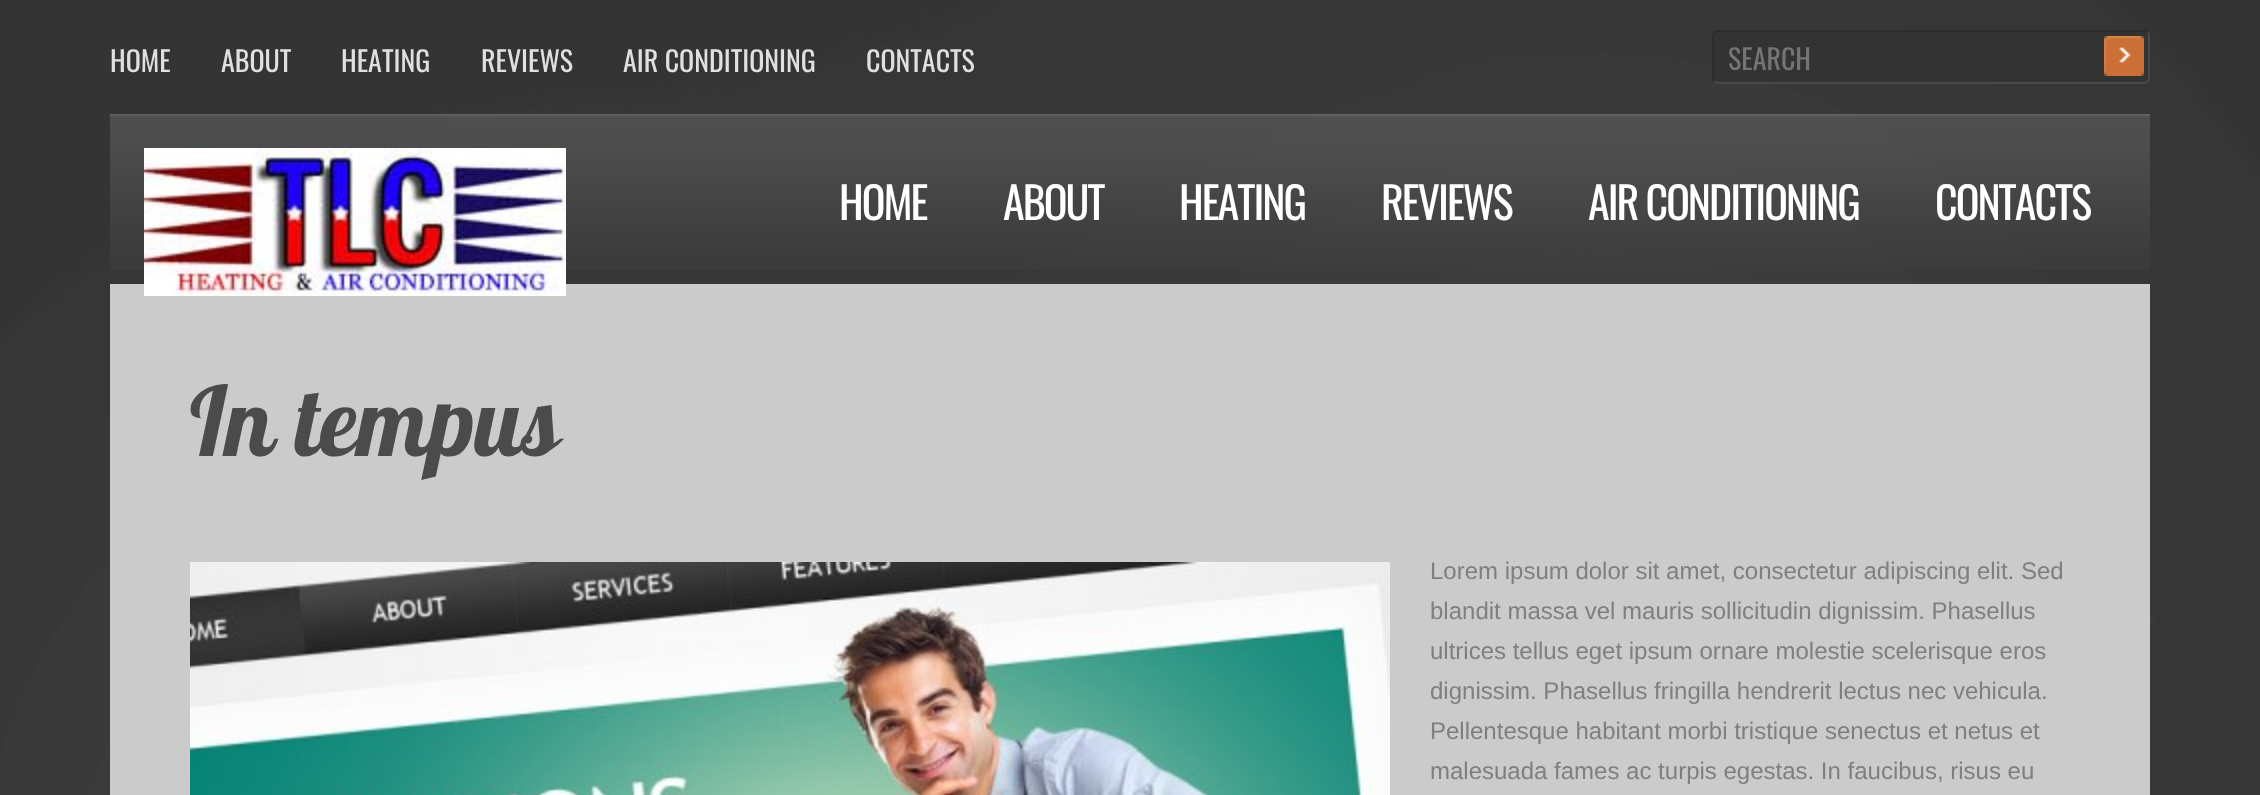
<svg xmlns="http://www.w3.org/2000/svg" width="2260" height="795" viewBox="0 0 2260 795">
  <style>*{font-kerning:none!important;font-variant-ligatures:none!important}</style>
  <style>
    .t1 { font: 28px Oswald; fill: #e0e0e0; }
    .t2 { font: 28px Oswald; fill: #757575; }
    .t3 { font: 44px Oswald; letter-spacing: -2px; fill: #fff; }
    .t4 { font: 96px Lobster; fill: #4b4b4b; }
    .t5 { font: 24px Liberation Sans; fill: #7f7f7f; }
  </style>
  <rect width="100%" height="100%" fill="#333"/>
  <image x="0" y="0" width="2260" height="795" href="images/1.png"/>
  <text x="110" y="72" class="t1">HOME</text>
  <text x="221" y="72" class="t1">ABOUT</text>
  <text x="341" y="72" class="t1">HEATING</text>
  <text x="481" y="72" class="t1">REVIEWS</text>
  <text x="623" y="72" class="t1">AIR CONDITIONING</text>
  <text x="866" y="72" class="t1">CONTACTS</text>
  <rect x="1712" y="30" width="438" height="54" rx="6" fill="#333"/>
  <path d="M2147.5 32.5C2148.5 33.5 2149 34.5 2149 36V78C2149 79.5 2148.5 80.5 2147.5 81.5C2146.5 82.5 2145.5 83 2144 83H1718C1716.5 83 1715.5 82.5 1714.5 81.5" fill="none" stroke="#4a4a4a" stroke-width="2"/>
  <path d="M1714.5 81.5C1713.5 80.5 1713 79.5 1713 78V36C1713 34.5 1713.5 33.5 1714.5 32.5C1715.5 31.5 1716.5 31 1718 31H2144C2145.5 31 2146.5 31.5 2147.5 32.5" fill="none" stroke="#2d2d2d" stroke-width="2"/>
  <text x="1728" y="70" class="t2">SEARCH</text>
  <image x="2104" y="36" width="40" height="40" href="images/2.png"/>
  <image x="110" y="114" width="2040" height="156" href="images/4.png"/>
  <rect x="110" y="284" width="2040" height="511" fill="#cbcbcb"/>
  <image x="144" y="148" width="422" height="148" href="images/3.png"/>
  <text x="839" y="220" class="t3">HOME</text>
  <text x="1003" y="220" class="t3">ABOUT</text>
  <text x="1179" y="220" class="t3">HEATING</text>
  <text x="1381" y="220" class="t3">REVIEWS</text>
  <text x="1588" y="220" class="t3">AIR CONDITIONING</text>
  <text x="1935" y="220" class="t3">CONTACTS</text>
  <text x="190" y="456" class="t4">In tempus</text>
  <image x="190" y="562" width="1200" height="233" href="images/5.png"/>
  <text x="1430" y="579" class="t5">Lorem ipsum dolor sit amet, consectetur adipiscing elit. Sed</text>
  <text x="1430" y="619" class="t5">blandit massa vel mauris sollicitudin dignissim. Phasellus</text>
  <text x="1430" y="659" class="t5">ultrices tellus eget ipsum ornare molestie scelerisque eros</text>
  <text x="1430" y="699" class="t5">dignissim. Phasellus fringilla hendrerit lectus nec vehicula.</text>
  <text x="1430" y="739" class="t5">Pellentesque habitant morbi tristique senectus et netus et</text>
  <text x="1430" y="779" class="t5">malesuada fames ac turpis egestas. In faucibus, risus eu</text>
</svg>
